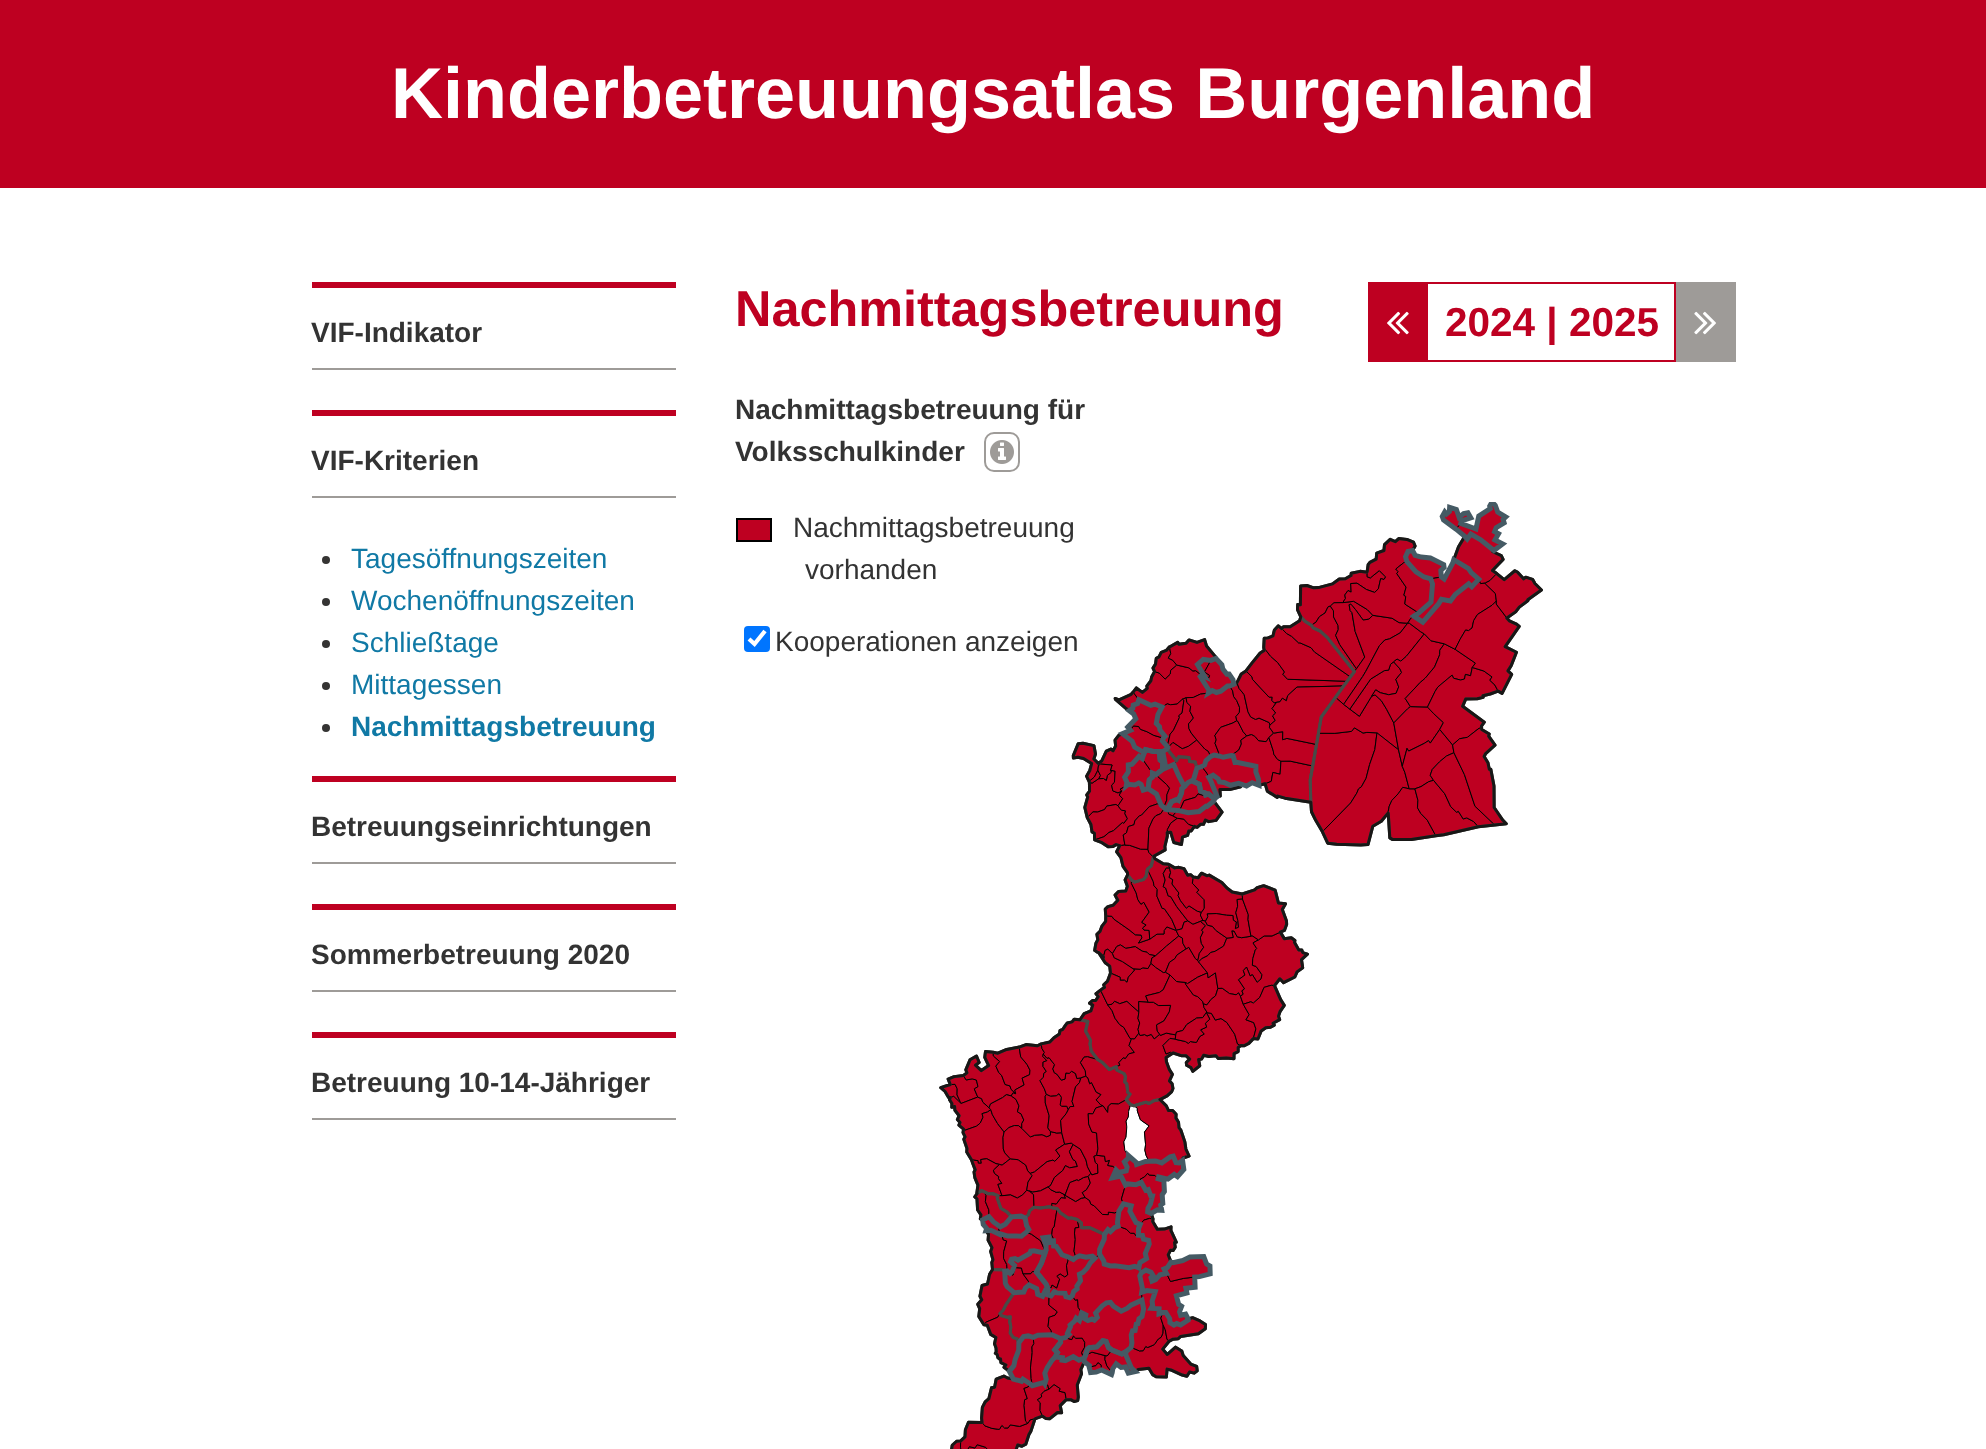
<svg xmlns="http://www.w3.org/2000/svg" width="1986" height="1449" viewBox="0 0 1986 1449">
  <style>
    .t1 { font: bold 72px Liberation Sans; fill: #fff; }
    .t2 { font: bold 28px Liberation Sans; fill: #333; }
    .t3 { font: 28px Liberation Sans; fill: #1079a5; }
    .t4 { font: bold 28px Liberation Sans; fill: #1079a5; }
    .t5 { font: bold 50.4px Liberation Sans; fill: #be0021; }
    .t6 { font: bold 40.5px Liberation Sans; fill: #be0021; }
    .t7 { font: 28px Liberation Sans; fill: #333; }
  </style>
  <rect width="100%" height="100%" fill="#fff"/>
  <rect x="0" y="0" width="1986" height="188" fill="#be0021"/>
  <text x="391" y="118" class="t1">Kinderbetreuungsatlas Burgenland</text>
  <rect x="312" y="282" width="364" height="6" fill="#be0021"/>
  <rect x="312" y="368" width="364" height="2" fill="#9e9b98"/>
  <text x="311" y="342" class="t2">VIF-Indikator</text>
  <rect x="312" y="410" width="364" height="6" fill="#be0021"/>
  <rect x="312" y="496" width="364" height="2" fill="#9e9b98"/>
  <text x="311" y="470" class="t2">VIF-Kriterien</text>
  <circle cx="326" cy="560" r="4" fill="#353433"/>
  <text x="351" y="568" class="t3">Tagesöffnungszeiten</text>
  <circle cx="326" cy="602" r="4" fill="#353433"/>
  <text x="351" y="610" class="t3">Wochenöffnungszeiten</text>
  <circle cx="326" cy="644" r="4" fill="#353433"/>
  <text x="351" y="652" class="t3">Schließtage</text>
  <circle cx="326" cy="686" r="4" fill="#353433"/>
  <text x="351" y="694" class="t3">Mittagessen</text>
  <circle cx="326" cy="728" r="4" fill="#353433"/>
  <text x="351" y="736" class="t4">Nachmittagsbetreuung</text>
  <rect x="312" y="776" width="364" height="6" fill="#be0021"/>
  <rect x="312" y="862" width="364" height="2" fill="#9e9b98"/>
  <text x="311" y="836" class="t2">Betreuungseinrichtungen</text>
  <rect x="312" y="904" width="364" height="6" fill="#be0021"/>
  <rect x="312" y="990" width="364" height="2" fill="#9e9b98"/>
  <text x="311" y="964" class="t2">Sommerbetreuung 2020</text>
  <rect x="312" y="1032" width="364" height="6" fill="#be0021"/>
  <rect x="312" y="1118" width="364" height="2" fill="#9e9b98"/>
  <text x="311" y="1092" class="t2">Betreuung 10-14-Jähriger</text>
  <text x="735" y="326" class="t5">Nachmittagsbetreuung</text>
  <rect x="1368" y="282" width="58" height="80" fill="#be0021"/>
  <image x="1387" y="311" width="22" height="24" href="images/1.png"/>
  <rect x="1427" y="283" width="248" height="78" fill="none" stroke="#be0021" stroke-width="2"/>
  <text x="1445" y="336" class="t6">2024 | 2025</text>
  <rect x="1676" y="282" width="60" height="80" fill="#9e9b98"/>
  <image x="1694" y="311" width="22" height="24" href="images/2.png"/>
  <text x="735" y="419" class="t2">Nachmittagsbetreuung für</text>
  <text x="735" y="461" class="t2">Volksschulkinder</text>
  <rect x="985" y="433" width="34" height="38" rx="9" fill="none" stroke="#9e9b98" stroke-width="2"/>
  <image x="990" y="440" width="24" height="24" href="images/3.png"/>
  <rect x="737" y="519" width="34" height="22" fill="none" stroke="#000" stroke-width="2"/>
  <rect x="738" y="520" width="32" height="20" fill="#be0021"/>
  <image x="939" y="502" width="604" height="947" href="images/4.png"/>
  <text x="793" y="537" class="t7">Nachmittagsbetreuung</text>
  <text x="805" y="579" class="t7">vorhanden</text>
  <rect x="744" y="626" width="26" height="26" rx="4" fill="#0075ff"/>
  <path d="M749 639L754.5 644L765 631" fill="none" stroke="#fff" stroke-width="4.2"/>
  <text x="775" y="651" class="t7">Kooperationen anzeigen</text>
</svg>
